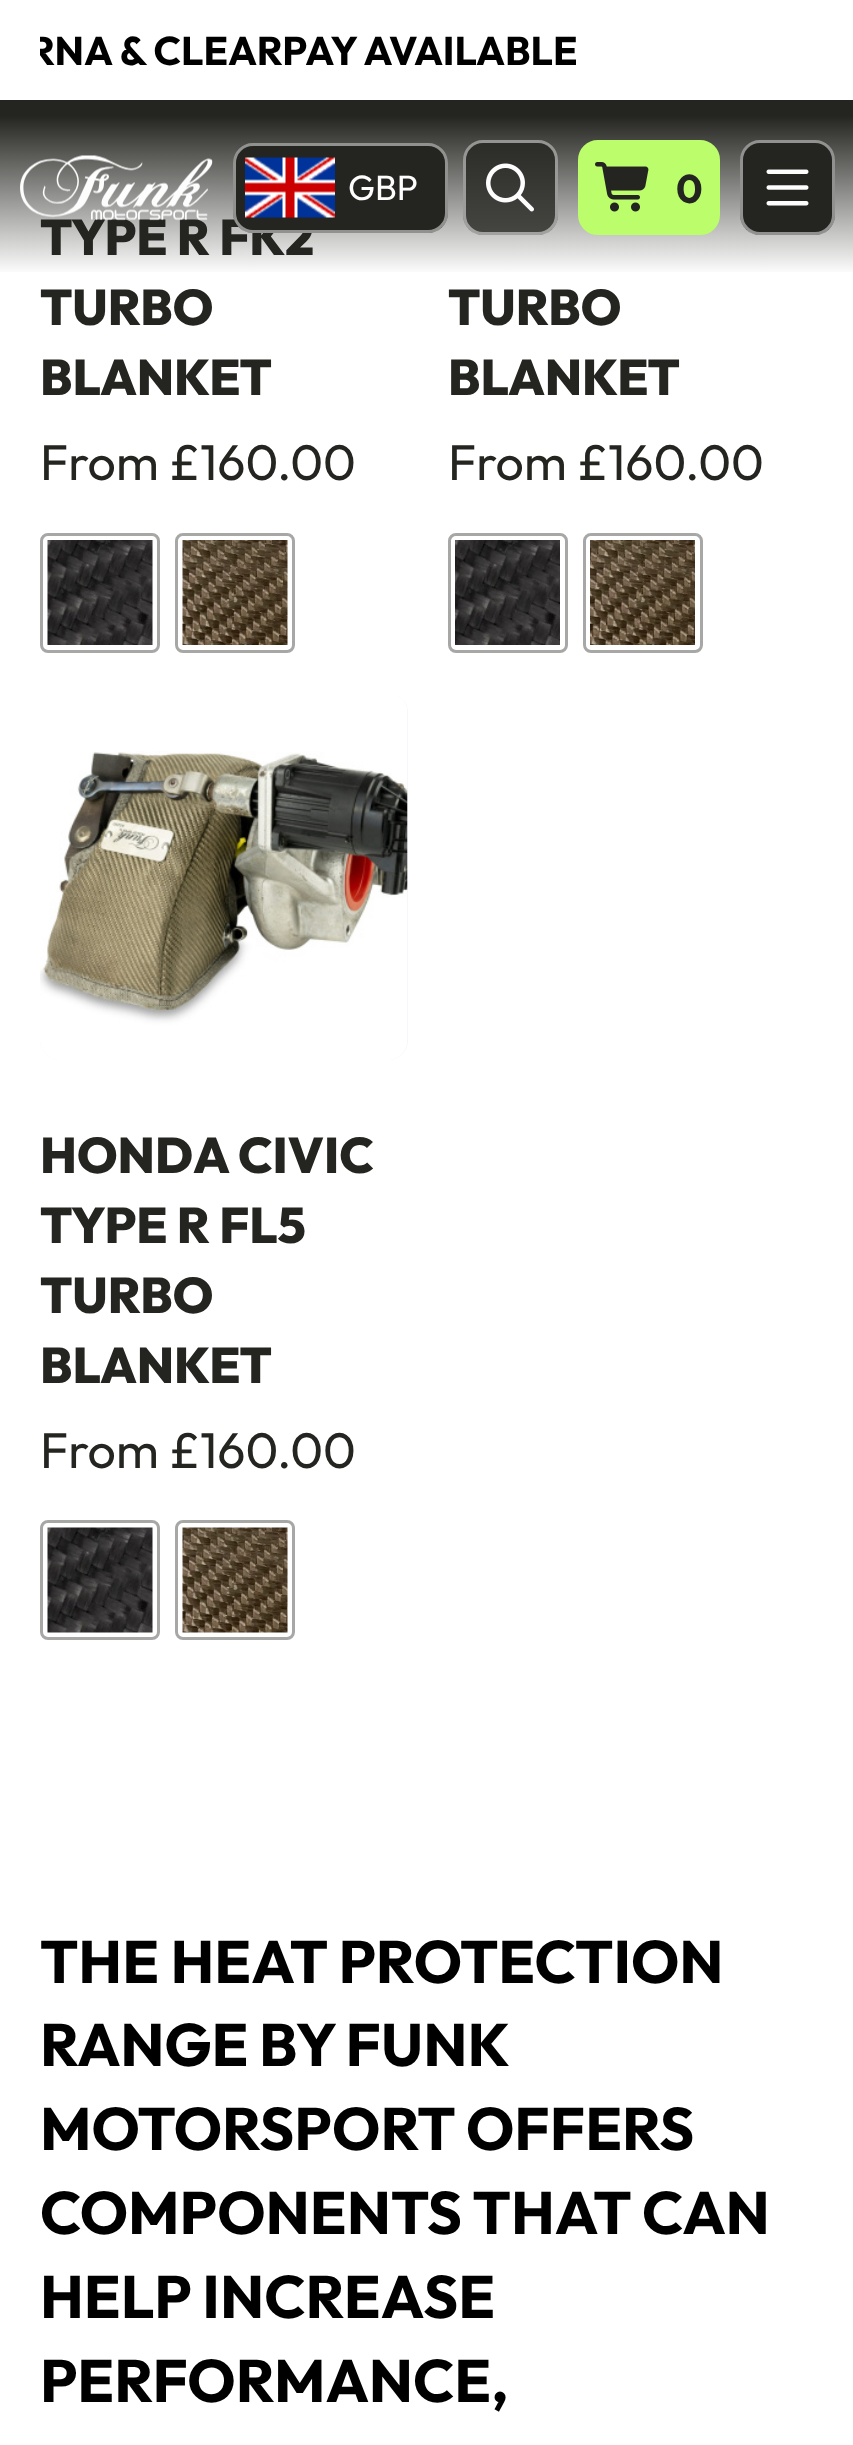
<svg xmlns="http://www.w3.org/2000/svg" width="853" height="2445" viewBox="0 0 853 2445">
  <style>
    .t1 { font: bold 40px Outfit; fill: #000; }
    .t2 { font: 800 50px Outfit; fill: #242420; }
    .t3 { font: 35px Outfit; fill: #fdfdfd; }
    .t4 { font: bold 40px Outfit; fill: #242420; }
    .t5 { font: 50px Outfit; fill: #242420; }
    .t6 { font: bold 60px Outfit; fill: #000; }
  </style>
  <defs>
    <clipPath id="clip1"><rect x="40" y="20" width="775" height="60"/></clipPath>
    <linearGradient id="g1" gradientUnits="userSpaceOnUse" x1="428" y1="275" x2="428" y2="100"><stop offset="0" stop-color="#242420" stop-opacity="0"/><stop offset="0.91" stop-color="#242420"/></linearGradient>
  </defs>
  <rect width="100%" height="100%" fill="#fff"/>
  <g clip-path="url(#clip1)">
    <text x="29" y="65" class="t1">RNA &amp; CLEARPAY AVAILABLE</text>
  </g>
  <text x="40" y="255" class="t2">TYPE R FK2</text>
  <rect x="0" y="100" width="853" height="172" fill="url(#g1)"/>
  <image x="20" y="155" width="193" height="66" href="images/1.png"/>
  <rect x="233" y="143" width="215" height="90" rx="20" fill="#242420"/>
  <rect x="234.5" y="144.5" width="212" height="87" rx="18.5" fill="none" stroke="#fdfdfd80" stroke-width="3"/>
  <image x="245" y="157" width="90" height="61" href="images/2.png"/>
  <text x="348" y="200" class="t3">GBP</text>
  <rect x="463" y="140" width="95" height="95" rx="20" fill="#242420cc"/>
  <rect x="464.5" y="141.5" width="92" height="92" rx="18.5" fill="none" stroke="#fdfdfd80" stroke-width="3"/>
  <image x="486" y="163" width="48" height="49" href="images/3.png"/>
  <rect x="579.5" y="141.5" width="139" height="92" rx="18.5" fill="#bbfd6a" stroke="#bbfd6a" stroke-width="3"/>
  <image x="595" y="162" width="54" height="50" href="images/4.png"/>
  <text x="676" y="203" class="t4">0</text>
  <rect x="740" y="140" width="95" height="95" rx="20" fill="#242420"/>
  <rect x="741.5" y="141.5" width="92" height="92" rx="18.5" fill="none" stroke="#fdfdfd80" stroke-width="3"/>
  <image x="766" y="169" width="43" height="37" href="images/5.png"/>
  <text x="40" y="325" class="t2">TURBO</text>
  <text x="40" y="395" class="t2">BLANKET</text>
  <text x="40" y="480" class="t5">From £160.00</text>
  <rect x="41.5" y="534.5" width="117" height="117" rx="6.5" fill="none" stroke="#a7a7a6" stroke-width="3"/>
  <image x="47" y="540" width="106" height="105" href="images/6.png"/>
  <rect x="176.5" y="534.5" width="117" height="117" rx="6.5" fill="none" stroke="#a7a7a6" stroke-width="3"/>
  <image x="182" y="540" width="106" height="105" href="images/7.png"/>
  <text x="448" y="325" class="t2">TURBO</text>
  <text x="448" y="395" class="t2">BLANKET</text>
  <text x="448" y="480" class="t5">From £160.00</text>
  <rect x="449.5" y="534.5" width="117" height="117" rx="6.5" fill="none" stroke="#a7a7a6" stroke-width="3"/>
  <image x="455" y="540" width="105" height="105" href="images/8.png"/>
  <rect x="584.5" y="534.5" width="117" height="117" rx="6.5" fill="none" stroke="#a7a7a6" stroke-width="3"/>
  <image x="590" y="540" width="105" height="105" href="images/9.png"/>
  <rect x="40" y="693" width="368" height="367" rx="20" fill="#f3f4f6"/>
  <image x="40" y="693" width="368" height="367" href="images/10.png"/>
  <text x="40" y="1173" class="t2">HONDA CIVIC</text>
  <text x="40" y="1243" class="t2">TYPE R FL5</text>
  <text x="40" y="1313" class="t2">TURBO</text>
  <text x="40" y="1383" class="t2">BLANKET</text>
  <text x="40" y="1468" class="t5">From £160.00</text>
  <rect x="41.5" y="1521.5" width="117" height="117" rx="6.5" fill="none" stroke="#a7a7a6" stroke-width="3"/>
  <image x="47" y="1527" width="106" height="106" href="images/11.png"/>
  <rect x="176.5" y="1521.5" width="117" height="117" rx="6.5" fill="none" stroke="#a7a7a6" stroke-width="3"/>
  <image x="182" y="1527" width="106" height="106" href="images/12.png"/>
  <text x="40" y="1983" class="t6">THE HEAT PROTECTION</text>
  <text x="40" y="2066" word-spacing="-1" class="t6">RANGE BY FUNK</text>
  <text x="40" y="2150" class="t6">MOTORSPORT OFFERS</text>
  <text x="40" y="2234" class="t6">COMPONENTS THAT CAN</text>
  <text x="40" y="2318" class="t6">HELP INCREASE</text>
  <text x="40" y="2402" class="t6">PERFORMANCE,</text>
</svg>
